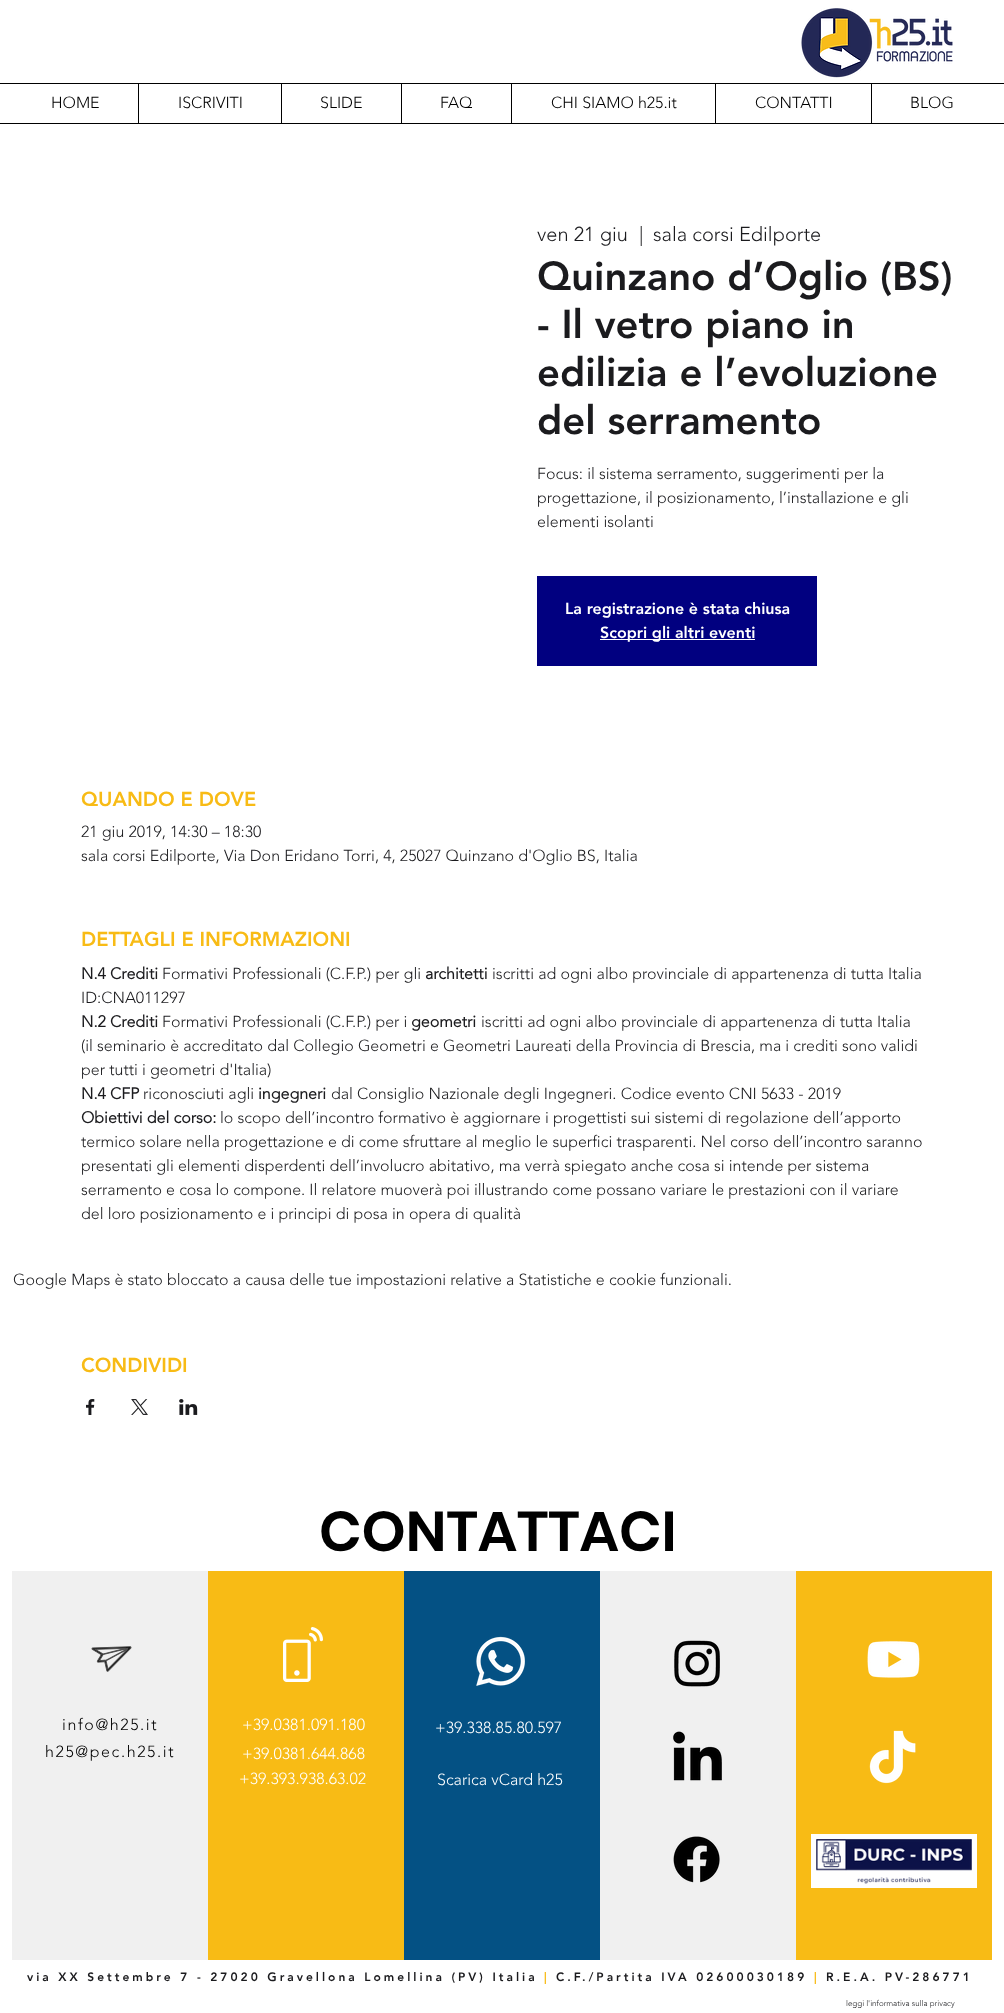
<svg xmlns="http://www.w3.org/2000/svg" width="1004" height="2013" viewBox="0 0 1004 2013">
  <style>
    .t1 { font: 300 16px 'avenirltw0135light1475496'; fill: #000; }
    .t2 { font: 300 20px 'avenirltw0135light1475496'; fill: #1b1b1e; }
    .t3 { font: 900 40px 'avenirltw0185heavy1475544'; fill: #1b1b1e; }
    .t4 { font: 300 16px 'avenirltw0135light1475496'; fill: #1b1b1e; }
    .t5 { font: 900 16px 'avenirltw0185heavy1475544'; fill: #fff; }
    .t6 { font: 900 20px 'avenirltw0185heavy1475544'; fill: #f8bb15; }
    .t7 { font: bold 16px 'avenirltw0135light1475496'; fill: #1b1b1e; }
    .t8 { font: 600 56px Poppins; fill: #000; }
    .t9 { font: 300 16px 'avenirltw0135light1475496'; letter-spacing: 1.6px; fill: #000; }
    .t10 { font: 300 16px 'avenirltw0135light1475496'; fill: #fff; }
    .t11 { font: 900 12px 'avenirltw0185heavy1475544'; letter-spacing: 3px; fill: #1b1b1e; }
    .t12 { font: 900 12px 'avenirltw0185heavy1475544'; letter-spacing: 3px; fill: #f8bb15; }
    .t13 { font: 300 8px 'avenirltw0135light1475496'; fill: #1b1b1e; }
  </style>
  <rect width="100%" height="100%" fill="#fff"/>
  <image x="801" y="8" width="152" height="70" href="images/1.png"/>
  <rect x="138" y="83" width="1" height="40" fill="#000"/>
  <rect x="281" y="83" width="1" height="40" fill="#000"/>
  <rect x="401" y="83" width="1" height="40" fill="#000"/>
  <rect x="511" y="83" width="1" height="40" fill="#000"/>
  <rect x="715" y="83" width="1" height="40" fill="#000"/>
  <rect x="871" y="83" width="1" height="40" fill="#000"/>
  <rect x="0" y="83" width="1004" height="1" fill="#000"/>
  <text x="51" y="108" class="t1">HOME</text>
  <text x="178" y="108" class="t1">ISCRIVITI</text>
  <text x="320" y="108" class="t1">SLIDE</text>
  <text x="440" y="108" class="t1">FAQ</text>
  <text x="551" y="108" class="t1">CHI SIAMO h25.it</text>
  <text x="755" y="108" class="t1">CONTATTI</text>
  <text x="910" y="108" class="t1">BLOG</text>
  <rect x="0" y="123" width="1004" height="1" fill="#000"/>
  <text x="537" y="241" class="t2">ven 21 giu</text>
  <text x="639" y="241" class="t2">|</text>
  <text x="653" y="241" class="t2">sala corsi Edilporte</text>
  <text x="537" y="290" class="t3">Quinzano d’Oglio (BS)</text>
  <text x="537" y="338" class="t3">- Il vetro piano in</text>
  <text x="537" y="386" class="t3">edilizia e l’evoluzione</text>
  <text x="537" y="434" class="t3">del serramento</text>
  <text x="537" y="479" class="t4">Focus: il sistema serramento, suggerimenti per la</text>
  <text x="537" y="503" class="t4">progettazione, il posizionamento, l’installazione e gli</text>
  <text x="537" y="527" class="t4">elementi isolanti</text>
  <rect x="537" y="576" width="280" height="90" fill="#010080"/>
  <text x="565" y="614" class="t5">La registrazione è stata chiusa</text>
  <rect x="600" y="639" width="155" height="1" fill="#fff"/>
  <text x="600" y="638" class="t5">Scopri gli altri eventi</text>
  <text x="81" y="806" class="t6">QUANDO E DOVE</text>
  <text x="81" y="837" class="t4">21 giu 2019, 14:30 – 18:30</text>
  <text x="81" y="861" class="t4">sala corsi Edilporte, Via Don Eridano Torri, 4, 25027 Quinzano d'Oglio BS, Italia</text>
  <text x="81" y="946" class="t6">DETTAGLI E INFORMAZIONI</text>
  <text x="81" y="979" class="t7">N.4 Crediti</text>
  <text x="162" y="979" class="t4">Formativi Professionali (C.F.P.) per gli</text>
  <text x="425" y="979" class="t7">architetti</text>
  <text x="492" y="979" class="t4">iscritti ad ogni albo provinciale di appartenenza di tutta Italia</text>
  <text x="81" y="1003" class="t4">ID:CNA011297</text>
  <text x="81" y="1027" class="t7">N.2 Crediti</text>
  <text x="162" y="1027" class="t4">Formativi Professionali (C.F.P.) per i</text>
  <text x="411" y="1027" class="t7">geometri</text>
  <text x="481" y="1027" class="t4">iscritti ad ogni albo provinciale di appartenenza di tutta Italia</text>
  <text x="81" y="1051" class="t4">(il seminario è accreditato dal Collegio Geometri e Geometri Laureati della Provincia di Brescia, ma i crediti sono validi</text>
  <text x="81" y="1075" class="t4">per tutti i geometri d'Italia)</text>
  <text x="81" y="1099" class="t7">N.4 CFP</text>
  <text x="143" y="1099" class="t4">riconosciuti agli</text>
  <text x="258" y="1099" class="t7">ingegneri</text>
  <text x="331" y="1099" class="t4">dal Consiglio Nazionale degli Ingegneri. Codice evento CNI 5633 - 2019</text>
  <text x="81" y="1123" class="t7">Obiettivi del corso:</text>
  <text x="220" y="1123" class="t4">lo scopo dell’incontro formativo è aggiornare i progettisti sui sistemi di regolazione dell’apporto</text>
  <text x="81" y="1147" class="t4">termico solare nella progettazione e di come sfruttare al meglio le superfici trasparenti. Nel corso dell’incontro saranno</text>
  <text x="81" y="1171" class="t4">presentati gli elementi disperdenti dell’involucro abitativo, ma verrà spiegato anche cosa si intende per sistema</text>
  <text x="81" y="1195" class="t4">serramento e cosa lo compone. Il relatore muoverà poi illustrando come possano variare le prestazioni con il variare</text>
  <text x="81" y="1219" class="t4">del loro posizionamento e i principi di posa in opera di qualità</text>
  <text x="13" y="1285" class="t4">Google Maps è stato bloccato a causa delle tue impostazioni relative a Statistiche e cookie funzionali.</text>
  <text x="81" y="1372" class="t6">CONDIVIDI</text>
  <image x="86" y="1399" width="9" height="16" href="images/2.png"/>
  <image x="131" y="1399" width="17" height="16" href="images/3.png"/>
  <image x="179" y="1399" width="19" height="16" href="images/4.png"/>
  <text x="319" y="1551" class="t8">CONTATTACI</text>
  <rect x="12" y="1571" width="196" height="389" fill="#f0f0f0"/>
  <image x="91" y="1646" width="41" height="26" href="images/5.png"/>
  <text x="62" y="1730" class="t9">info@h25.it</text>
  <text x="45" y="1757" class="t9">h25@pec.h25.it</text>
  <rect x="208" y="1571" width="196" height="389" fill="#f8bb15"/>
  <image x="283" y="1627" width="40" height="55" href="images/6.png"/>
  <text x="242" y="1730" class="t10">+39.0381.091.180</text>
  <text x="242" y="1759" class="t10">+39.0381.644.868</text>
  <text x="239" y="1784" class="t10">+39.393.938.63.02</text>
  <rect x="404" y="1571" width="196" height="389" fill="#045184"/>
  <image x="476" y="1636" width="49" height="50" href="images/7.png"/>
  <text x="435" y="1733" class="t10">+39.338.85.80.597</text>
  <text x="437" y="1785" class="t10">Scarica vCard h25</text>
  <rect x="600" y="1571" width="196" height="389" fill="#f0f0f0"/>
  <image x="674" y="1640" width="46" height="47" href="images/8.png"/>
  <image x="673" y="1731" width="49" height="50" href="images/9.png"/>
  <image x="673" y="1836" width="47" height="47" href="images/10.png"/>
  <rect x="796" y="1571" width="196" height="389" fill="#f8bb15"/>
  <image x="867" y="1641" width="53" height="37" href="images/11.png"/>
  <image x="869" y="1730" width="47" height="54" href="images/12.png"/>
  <rect x="811" y="1834" width="166" height="54" fill="#fff"/>
  <image x="816" y="1839" width="156" height="45" href="images/13.png"/>
  <text x="27" y="1981" class="t11">via XX Settembre 7 - 27020 Gravellona Lomellina (PV) Italia</text>
  <text x="544" y="1981" class="t12">|</text>
  <text x="556" y="1981" class="t11">C.F./Partita IVA 02600030189</text>
  <text x="814" y="1981" class="t12">|</text>
  <text x="826" y="1981" class="t11">R.E.A. PV-286771</text>
  <text x="846" y="2006" class="t13">leggi l'informativa sulla privacy</text>
</svg>
